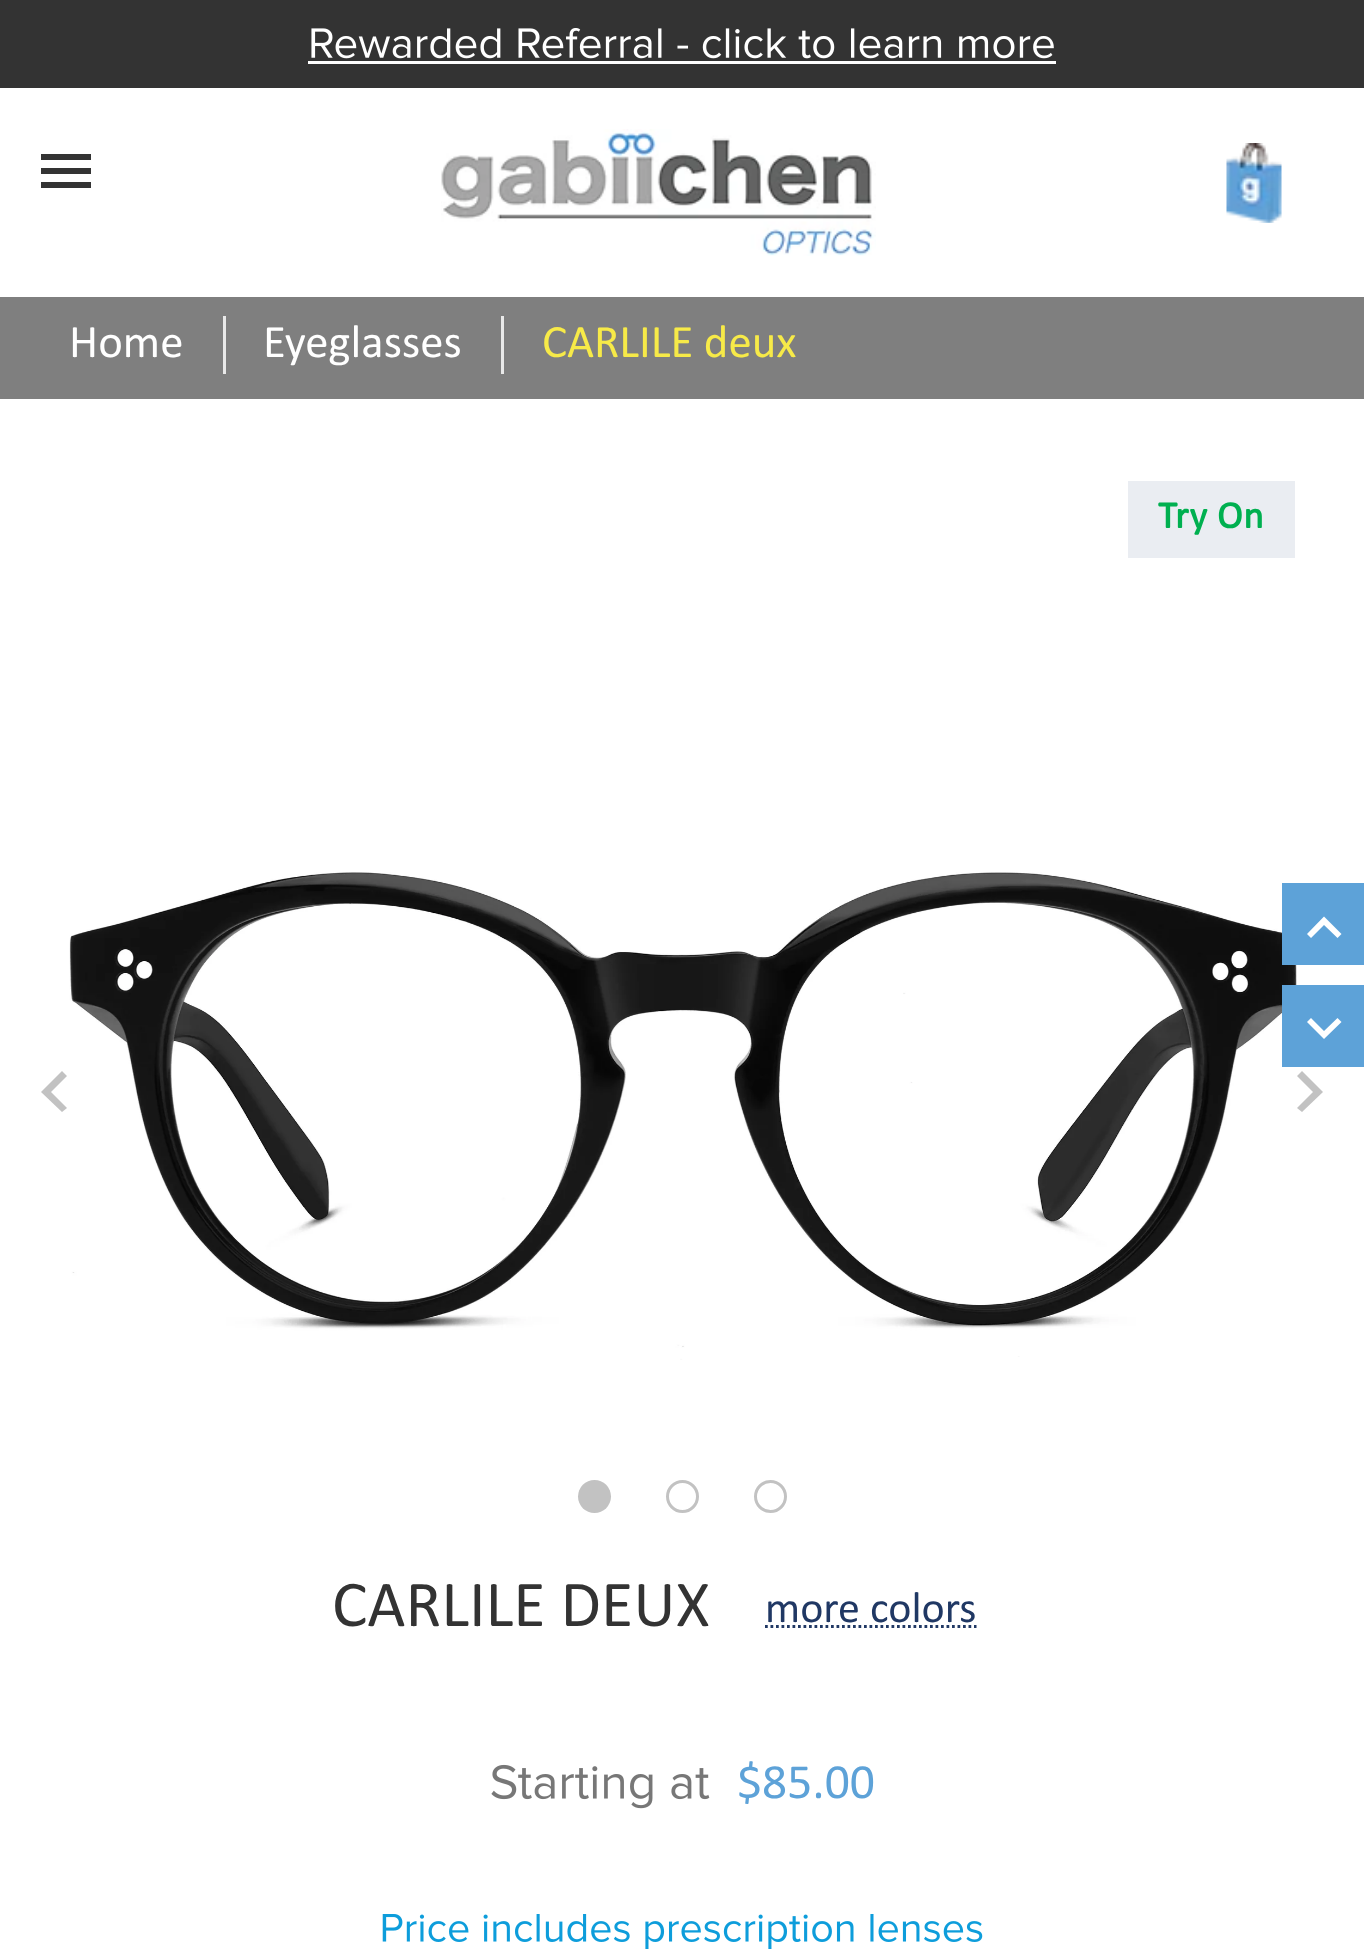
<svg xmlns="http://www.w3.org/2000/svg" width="1364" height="1949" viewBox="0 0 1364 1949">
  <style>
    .t1 { font: 46.75px Calibri; fill: #fff; }
    .t2 { font: 46.75px Calibri; fill: #f7ea48; }
    .t3 { font: bold 38.5px Calibri; letter-spacing: 0.75px; fill: #00b050; }
    .t4 { font: 66px Calibri; fill: #333; }
    .t5 { font: 44px Calibri; fill: #203864; }
    .t6 { font: 49.5px Calibri; fill: #5da2d8; }
  </style>
  <rect width="100%" height="100%" fill="#fff"/>
  <rect x="0" y="0" width="1364" height="88" fill="#333"/>
  <image x="311" y="28" width="743" height="31" href="images/1.png"/>
  <rect x="308" y="61" width="748" height="3" fill="#fff"/>
  <rect x="41" y="154" width="50" height="6" fill="#333"/>
  <rect x="41" y="168" width="50" height="6" fill="#333"/>
  <rect x="41" y="182" width="50" height="6" fill="#333"/>
  <image x="441" y="129" width="435" height="127" href="images/2.png"/>
  <image x="1226" y="143" width="56" height="80" href="images/3.png"/>
  <rect x="0" y="297" width="1364" height="102" fill="#7f7f7f"/>
  <rect x="223" y="316" width="3" height="58" fill="#e9e9e9"/>
  <text x="69" y="357" class="t1">Home</text>
  <rect x="501" y="316" width="3" height="58" fill="#e9e9e9"/>
  <text x="263" y="357" class="t1">Eyeglasses</text>
  <text x="542" y="357" class="t2">CARLILE deux</text>
  <rect x="1128" y="481" width="167" height="77" fill="#eaedf2"/>
  <text x="1158" y="528" class="t3">Try On</text>
  <path d="M67 1076L51 1092L67 1108L62 1112L41 1092L62 1071Z" fill="#c2c2c2"/>
  <image x="69" y="872" width="1228" height="488" href="images/4.png"/>
  <path d="M1302 1071L1323 1092L1302 1112L1297 1108L1313 1092L1297 1076Z" fill="#c2c2c2"/>
  <circle cx="594.5" cy="1496.5" r="16.5" fill="#c2c2c2"/>
  <circle cx="682.5" cy="1496.5" r="15" fill="none" stroke="#c2c2c2" stroke-width="3"/>
  <circle cx="770.5" cy="1496.5" r="15" fill="none" stroke="#c2c2c2" stroke-width="3"/>
  <text x="332" y="1626" class="t4">CARLILE DEUX</text>
  <text x="765" y="1622" class="t5">more colors</text>
  <path d="M765 1626.5H976.5" fill="none" stroke="#203864" stroke-width="2.8" stroke-dasharray="2.75 2.75"/>
  <image x="491" y="1764" width="219" height="45" href="images/5.png"/>
  <text x="737" y="1798" class="t6">$85.00</text>
  <image x="382" y="1914" width="601" height="35" href="images/6.png"/>
  <rect x="1282" y="883" width="82" height="82" fill="#5da2d8"/>
  <path d="M1311 938L1307 934L1324 916.5L1341.5 934L1337.5 938L1324 925Z" fill="#fff"/>
  <rect x="1282" y="985" width="82" height="82" fill="#5da2d8"/>
  <path d="M1311 1018L1324 1031L1337.5 1018L1341.5 1022L1324 1039L1307 1022Z" fill="#fff"/>
</svg>
